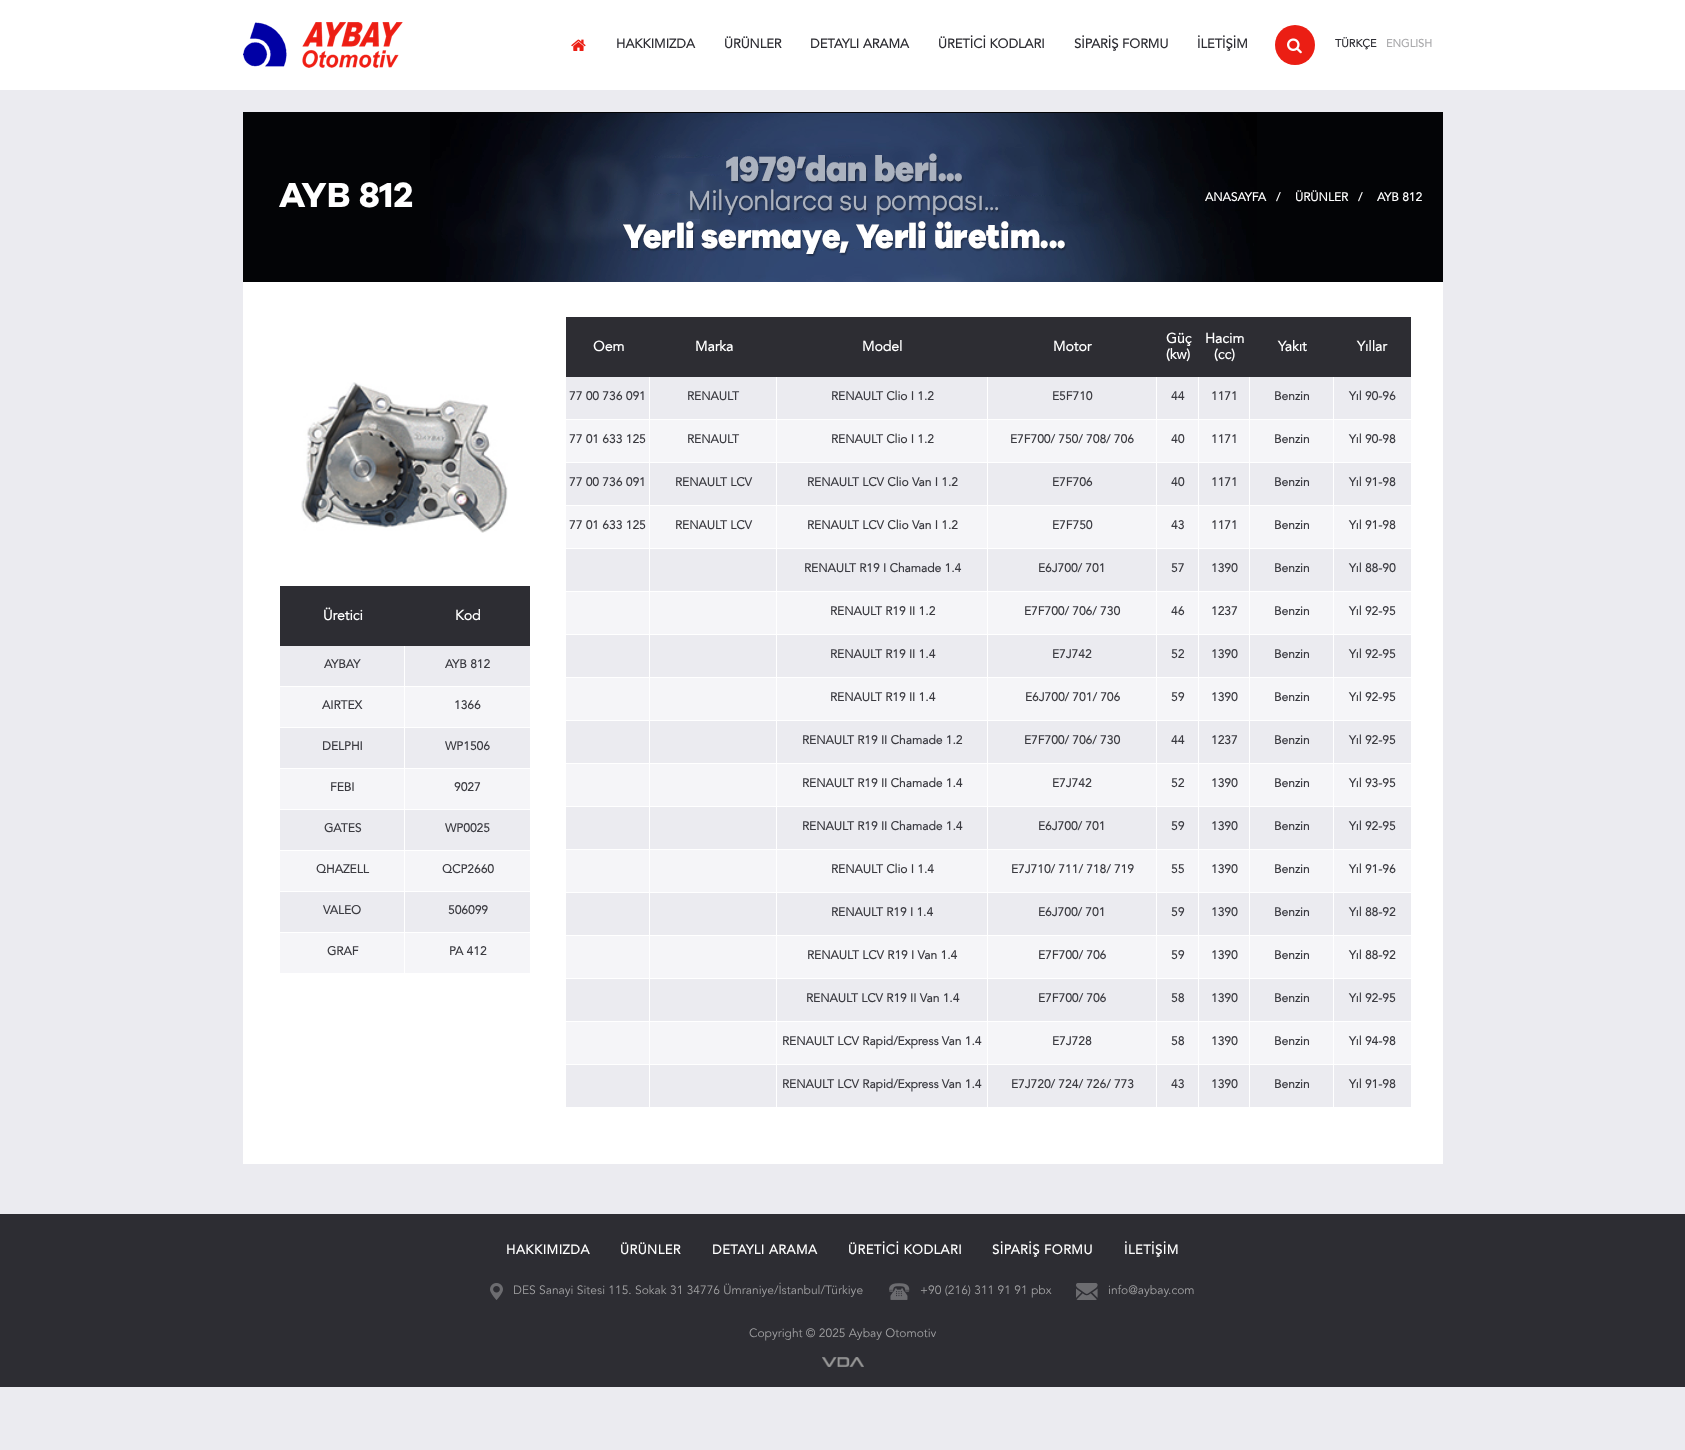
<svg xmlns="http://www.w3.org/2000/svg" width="1685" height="1450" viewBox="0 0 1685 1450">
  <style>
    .t1 { font: bold 13px 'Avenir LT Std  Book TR'; fill: #2d2d33; }
    .t2 { font: bold 11px 'Avenir LT Std  Book TR'; fill: #2d2d33; }
    .t3 { font: bold 11px 'Avenir LT Std  Book TR'; fill: #ababad; }
    .t4 { font: bold 36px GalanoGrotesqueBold; fill: #fff; }
    .t5 { font: bold 12px 'Avenir LT Std  Book TR'; fill: #fff; }
    .t6 { font: bold 14px 'Avenir LT Std  Book TR'; fill: #fff; }
    .t7 { font: bold 12px 'Avenir LT Std  Book TR'; fill: #3b3b41; }
    .t8 { font: bold 13px 'Avenir LT Std  Book TR'; letter-spacing: 0.5px; fill: #fff; }
    .t9 { font: 12px 'Avenir LT Std  Book TR'; fill: #a1a1a3; }
  </style>
  <rect width="100%" height="100%" fill="#ebebf0"/>
  <rect x="0" y="0" width="1685" height="90" fill="#fff"/>
  <image x="243" y="22" width="160" height="46" href="images/1.png"/>
  <image x="571" y="39" width="15" height="12" href="images/2.png"/>
  <text x="616" y="48" class="t1">HAKKIMIZDA</text>
  <text x="724" y="48" class="t1">ÜRÜNLER</text>
  <text x="810" y="48" class="t1">DETAYLI ARAMA</text>
  <text x="938" y="48" class="t1">ÜRETİCİ KODLARI</text>
  <text x="1074" y="48" class="t1">SİPARİŞ FORMU</text>
  <text x="1197" y="48" class="t1">İLETİŞİM</text>
  <circle cx="1295" cy="45" r="20" fill="#eb1e14"/>
  <image x="1287" y="38" width="15" height="16" href="images/3.png"/>
  <text x="1335" y="47" class="t2">TÜRKÇE</text>
  <text x="1386" y="47" class="t3">ENGLISH</text>
  <image x="243" y="112" width="1200" height="170" href="images/4.png"/>
  <text x="279" y="207" class="t4">AYB 812</text>
  <text x="1205" y="201" class="t5">ANASAYFA</text>
  <text x="1276" y="201" class="t5">/</text>
  <text x="1295" y="201" class="t5">ÜRÜNLER</text>
  <text x="1358" y="201" class="t5">/</text>
  <text x="1377" y="201" class="t5">AYB 812</text>
  <rect x="243" y="282" width="1200" height="882" fill="#fff"/>
  <image x="301" y="382" width="207" height="151" href="images/5.png"/>
  <rect x="280" y="586" width="250" height="60" fill="#2d2d33"/>
  <text x="323" y="620" class="t6">Üretici</text>
  <text x="455" y="620" class="t6">Kod</text>
  <rect x="280" y="646" width="250" height="40" fill="#ebebf0"/>
  <rect x="404" y="646" width="1" height="40" fill="#fff"/>
  <text x="324" y="668" class="t7">AYBAY</text>
  <text x="445" y="668" class="t7">AYB 812</text>
  <rect x="280" y="687" width="250" height="40" fill="#f5f5f8"/>
  <rect x="404" y="687" width="1" height="40" fill="#fff"/>
  <text x="322" y="709" class="t7">AIRTEX</text>
  <text x="454" y="709" class="t7">1366</text>
  <rect x="280" y="728" width="250" height="40" fill="#ebebf0"/>
  <rect x="404" y="728" width="1" height="40" fill="#fff"/>
  <text x="322" y="750" class="t7">DELPHI</text>
  <text x="445" y="750" class="t7">WP1506</text>
  <rect x="280" y="769" width="250" height="40" fill="#f5f5f8"/>
  <rect x="404" y="769" width="1" height="40" fill="#fff"/>
  <text x="330" y="791" class="t7">FEBI</text>
  <text x="454" y="791" class="t7">9027</text>
  <rect x="280" y="810" width="250" height="40" fill="#ebebf0"/>
  <rect x="404" y="810" width="1" height="40" fill="#fff"/>
  <text x="324" y="832" class="t7">GATES</text>
  <text x="445" y="832" class="t7">WP0025</text>
  <rect x="280" y="851" width="250" height="40" fill="#f5f5f8"/>
  <rect x="404" y="851" width="1" height="40" fill="#fff"/>
  <text x="316" y="873" class="t7">QHAZELL</text>
  <text x="442" y="873" class="t7">QCP2660</text>
  <rect x="280" y="892" width="250" height="40" fill="#ebebf0"/>
  <rect x="404" y="892" width="1" height="40" fill="#fff"/>
  <text x="323" y="914" class="t7">VALEO</text>
  <text x="448" y="914" class="t7">506099</text>
  <rect x="280" y="933" width="250" height="40" fill="#f5f5f8"/>
  <rect x="404" y="933" width="1" height="40" fill="#fff"/>
  <text x="327" y="955" class="t7">GRAF</text>
  <text x="449" y="955" class="t7">PA 412</text>
  <rect x="566" y="317" width="845" height="60" fill="#2d2d33"/>
  <text x="593" y="351" class="t6">Oem</text>
  <text x="695" y="351" class="t6">Marka</text>
  <text x="862" y="351" class="t6">Model</text>
  <text x="1053" y="351" class="t6">Motor</text>
  <text x="1166" y="343" class="t6">Güç</text>
  <text x="1166" y="359" class="t6">(kw)</text>
  <text x="1205" y="343" class="t6">Hacim</text>
  <text x="1214" y="359" class="t6">(cc)</text>
  <text x="1278" y="351" class="t6">Yakıt</text>
  <text x="1357" y="351" class="t6">Yıllar</text>
  <rect x="566" y="377" width="845" height="42" fill="#ebebf0"/>
  <rect x="649" y="377" width="1" height="42" fill="#fff"/>
  <text x="569" y="400" class="t7">77 00 736 091</text>
  <rect x="776" y="377" width="1" height="42" fill="#fff"/>
  <text x="687" y="400" class="t7">RENAULT</text>
  <rect x="987" y="377" width="1" height="42" fill="#fff"/>
  <text x="831" y="400" class="t7">RENAULT Clio I 1.2</text>
  <rect x="1156" y="377" width="1" height="42" fill="#fff"/>
  <text x="1052" y="400" class="t7">E5F710</text>
  <rect x="1198" y="377" width="1" height="42" fill="#fff"/>
  <text x="1171" y="400" class="t7">44</text>
  <rect x="1249" y="377" width="1" height="42" fill="#fff"/>
  <text x="1211" y="400" class="t7">1171</text>
  <rect x="1333" y="377" width="1" height="42" fill="#fff"/>
  <text x="1274" y="400" class="t7">Benzin</text>
  <text x="1349" y="400" class="t7">Yıl 90-96</text>
  <rect x="566" y="420" width="845" height="42" fill="#f5f5f8"/>
  <rect x="649" y="420" width="1" height="42" fill="#fff"/>
  <text x="569" y="443" class="t7">77 01 633 125</text>
  <rect x="776" y="420" width="1" height="42" fill="#fff"/>
  <text x="687" y="443" class="t7">RENAULT</text>
  <rect x="987" y="420" width="1" height="42" fill="#fff"/>
  <text x="831" y="443" class="t7">RENAULT Clio I 1.2</text>
  <rect x="1156" y="420" width="1" height="42" fill="#fff"/>
  <text x="1010" y="443" class="t7">E7F700/ 750/ 708/ 706</text>
  <rect x="1198" y="420" width="1" height="42" fill="#fff"/>
  <text x="1171" y="443" class="t7">40</text>
  <rect x="1249" y="420" width="1" height="42" fill="#fff"/>
  <text x="1211" y="443" class="t7">1171</text>
  <rect x="1333" y="420" width="1" height="42" fill="#fff"/>
  <text x="1274" y="443" class="t7">Benzin</text>
  <text x="1349" y="443" class="t7">Yıl 90-98</text>
  <rect x="566" y="463" width="845" height="42" fill="#ebebf0"/>
  <rect x="649" y="463" width="1" height="42" fill="#fff"/>
  <text x="569" y="486" class="t7">77 00 736 091</text>
  <rect x="776" y="463" width="1" height="42" fill="#fff"/>
  <text x="675" y="486" class="t7">RENAULT LCV</text>
  <rect x="987" y="463" width="1" height="42" fill="#fff"/>
  <text x="807" y="486" class="t7">RENAULT LCV Clio Van I 1.2</text>
  <rect x="1156" y="463" width="1" height="42" fill="#fff"/>
  <text x="1052" y="486" class="t7">E7F706</text>
  <rect x="1198" y="463" width="1" height="42" fill="#fff"/>
  <text x="1171" y="486" class="t7">40</text>
  <rect x="1249" y="463" width="1" height="42" fill="#fff"/>
  <text x="1211" y="486" class="t7">1171</text>
  <rect x="1333" y="463" width="1" height="42" fill="#fff"/>
  <text x="1274" y="486" class="t7">Benzin</text>
  <text x="1349" y="486" class="t7">Yıl 91-98</text>
  <rect x="566" y="506" width="845" height="42" fill="#f5f5f8"/>
  <rect x="649" y="506" width="1" height="42" fill="#fff"/>
  <text x="569" y="529" class="t7">77 01 633 125</text>
  <rect x="776" y="506" width="1" height="42" fill="#fff"/>
  <text x="675" y="529" class="t7">RENAULT LCV</text>
  <rect x="987" y="506" width="1" height="42" fill="#fff"/>
  <text x="807" y="529" class="t7">RENAULT LCV Clio Van I 1.2</text>
  <rect x="1156" y="506" width="1" height="42" fill="#fff"/>
  <text x="1052" y="529" class="t7">E7F750</text>
  <rect x="1198" y="506" width="1" height="42" fill="#fff"/>
  <text x="1171" y="529" class="t7">43</text>
  <rect x="1249" y="506" width="1" height="42" fill="#fff"/>
  <text x="1211" y="529" class="t7">1171</text>
  <rect x="1333" y="506" width="1" height="42" fill="#fff"/>
  <text x="1274" y="529" class="t7">Benzin</text>
  <text x="1349" y="529" class="t7">Yıl 91-98</text>
  <rect x="566" y="549" width="845" height="42" fill="#ebebf0"/>
  <rect x="649" y="549" width="1" height="42" fill="#fff"/>
  <rect x="776" y="549" width="1" height="42" fill="#fff"/>
  <rect x="987" y="549" width="1" height="42" fill="#fff"/>
  <text x="804" y="572" class="t7">RENAULT R19 I Chamade 1.4</text>
  <rect x="1156" y="549" width="1" height="42" fill="#fff"/>
  <text x="1038" y="572" class="t7">E6J700/ 701</text>
  <rect x="1198" y="549" width="1" height="42" fill="#fff"/>
  <text x="1171" y="572" class="t7">57</text>
  <rect x="1249" y="549" width="1" height="42" fill="#fff"/>
  <text x="1211" y="572" class="t7">1390</text>
  <rect x="1333" y="549" width="1" height="42" fill="#fff"/>
  <text x="1274" y="572" class="t7">Benzin</text>
  <text x="1349" y="572" class="t7">Yıl 88-90</text>
  <rect x="566" y="592" width="845" height="42" fill="#f5f5f8"/>
  <rect x="649" y="592" width="1" height="42" fill="#fff"/>
  <rect x="776" y="592" width="1" height="42" fill="#fff"/>
  <rect x="987" y="592" width="1" height="42" fill="#fff"/>
  <text x="830" y="615" class="t7">RENAULT R19 II 1.2</text>
  <rect x="1156" y="592" width="1" height="42" fill="#fff"/>
  <text x="1024" y="615" class="t7">E7F700/ 706/ 730</text>
  <rect x="1198" y="592" width="1" height="42" fill="#fff"/>
  <text x="1171" y="615" class="t7">46</text>
  <rect x="1249" y="592" width="1" height="42" fill="#fff"/>
  <text x="1211" y="615" class="t7">1237</text>
  <rect x="1333" y="592" width="1" height="42" fill="#fff"/>
  <text x="1274" y="615" class="t7">Benzin</text>
  <text x="1349" y="615" class="t7">Yıl 92-95</text>
  <rect x="566" y="635" width="845" height="42" fill="#ebebf0"/>
  <rect x="649" y="635" width="1" height="42" fill="#fff"/>
  <rect x="776" y="635" width="1" height="42" fill="#fff"/>
  <rect x="987" y="635" width="1" height="42" fill="#fff"/>
  <text x="830" y="658" class="t7">RENAULT R19 II 1.4</text>
  <rect x="1156" y="635" width="1" height="42" fill="#fff"/>
  <text x="1052" y="658" class="t7">E7J742</text>
  <rect x="1198" y="635" width="1" height="42" fill="#fff"/>
  <text x="1171" y="658" class="t7">52</text>
  <rect x="1249" y="635" width="1" height="42" fill="#fff"/>
  <text x="1211" y="658" class="t7">1390</text>
  <rect x="1333" y="635" width="1" height="42" fill="#fff"/>
  <text x="1274" y="658" class="t7">Benzin</text>
  <text x="1349" y="658" class="t7">Yıl 92-95</text>
  <rect x="566" y="678" width="845" height="42" fill="#f5f5f8"/>
  <rect x="649" y="678" width="1" height="42" fill="#fff"/>
  <rect x="776" y="678" width="1" height="42" fill="#fff"/>
  <rect x="987" y="678" width="1" height="42" fill="#fff"/>
  <text x="830" y="701" class="t7">RENAULT R19 II 1.4</text>
  <rect x="1156" y="678" width="1" height="42" fill="#fff"/>
  <text x="1025" y="701" class="t7">E6J700/ 701/ 706</text>
  <rect x="1198" y="678" width="1" height="42" fill="#fff"/>
  <text x="1171" y="701" class="t7">59</text>
  <rect x="1249" y="678" width="1" height="42" fill="#fff"/>
  <text x="1211" y="701" class="t7">1390</text>
  <rect x="1333" y="678" width="1" height="42" fill="#fff"/>
  <text x="1274" y="701" class="t7">Benzin</text>
  <text x="1349" y="701" class="t7">Yıl 92-95</text>
  <rect x="566" y="721" width="845" height="42" fill="#ebebf0"/>
  <rect x="649" y="721" width="1" height="42" fill="#fff"/>
  <rect x="776" y="721" width="1" height="42" fill="#fff"/>
  <rect x="987" y="721" width="1" height="42" fill="#fff"/>
  <text x="802" y="744" class="t7">RENAULT R19 II Chamade 1.2</text>
  <rect x="1156" y="721" width="1" height="42" fill="#fff"/>
  <text x="1024" y="744" class="t7">E7F700/ 706/ 730</text>
  <rect x="1198" y="721" width="1" height="42" fill="#fff"/>
  <text x="1171" y="744" class="t7">44</text>
  <rect x="1249" y="721" width="1" height="42" fill="#fff"/>
  <text x="1211" y="744" class="t7">1237</text>
  <rect x="1333" y="721" width="1" height="42" fill="#fff"/>
  <text x="1274" y="744" class="t7">Benzin</text>
  <text x="1349" y="744" class="t7">Yıl 92-95</text>
  <rect x="566" y="764" width="845" height="42" fill="#f5f5f8"/>
  <rect x="649" y="764" width="1" height="42" fill="#fff"/>
  <rect x="776" y="764" width="1" height="42" fill="#fff"/>
  <rect x="987" y="764" width="1" height="42" fill="#fff"/>
  <text x="802" y="787" class="t7">RENAULT R19 II Chamade 1.4</text>
  <rect x="1156" y="764" width="1" height="42" fill="#fff"/>
  <text x="1052" y="787" class="t7">E7J742</text>
  <rect x="1198" y="764" width="1" height="42" fill="#fff"/>
  <text x="1171" y="787" class="t7">52</text>
  <rect x="1249" y="764" width="1" height="42" fill="#fff"/>
  <text x="1211" y="787" class="t7">1390</text>
  <rect x="1333" y="764" width="1" height="42" fill="#fff"/>
  <text x="1274" y="787" class="t7">Benzin</text>
  <text x="1349" y="787" class="t7">Yıl 93-95</text>
  <rect x="566" y="807" width="845" height="42" fill="#ebebf0"/>
  <rect x="649" y="807" width="1" height="42" fill="#fff"/>
  <rect x="776" y="807" width="1" height="42" fill="#fff"/>
  <rect x="987" y="807" width="1" height="42" fill="#fff"/>
  <text x="802" y="830" class="t7">RENAULT R19 II Chamade 1.4</text>
  <rect x="1156" y="807" width="1" height="42" fill="#fff"/>
  <text x="1038" y="830" class="t7">E6J700/ 701</text>
  <rect x="1198" y="807" width="1" height="42" fill="#fff"/>
  <text x="1171" y="830" class="t7">59</text>
  <rect x="1249" y="807" width="1" height="42" fill="#fff"/>
  <text x="1211" y="830" class="t7">1390</text>
  <rect x="1333" y="807" width="1" height="42" fill="#fff"/>
  <text x="1274" y="830" class="t7">Benzin</text>
  <text x="1349" y="830" class="t7">Yıl 92-95</text>
  <rect x="566" y="850" width="845" height="42" fill="#f5f5f8"/>
  <rect x="649" y="850" width="1" height="42" fill="#fff"/>
  <rect x="776" y="850" width="1" height="42" fill="#fff"/>
  <rect x="987" y="850" width="1" height="42" fill="#fff"/>
  <text x="831" y="873" class="t7">RENAULT Clio I 1.4</text>
  <rect x="1156" y="850" width="1" height="42" fill="#fff"/>
  <text x="1011" y="873" class="t7">E7J710/ 711/ 718/ 719</text>
  <rect x="1198" y="850" width="1" height="42" fill="#fff"/>
  <text x="1171" y="873" class="t7">55</text>
  <rect x="1249" y="850" width="1" height="42" fill="#fff"/>
  <text x="1211" y="873" class="t7">1390</text>
  <rect x="1333" y="850" width="1" height="42" fill="#fff"/>
  <text x="1274" y="873" class="t7">Benzin</text>
  <text x="1349" y="873" class="t7">Yıl 91-96</text>
  <rect x="566" y="893" width="845" height="42" fill="#ebebf0"/>
  <rect x="649" y="893" width="1" height="42" fill="#fff"/>
  <rect x="776" y="893" width="1" height="42" fill="#fff"/>
  <rect x="987" y="893" width="1" height="42" fill="#fff"/>
  <text x="831" y="916" class="t7">RENAULT R19 I 1.4</text>
  <rect x="1156" y="893" width="1" height="42" fill="#fff"/>
  <text x="1038" y="916" class="t7">E6J700/ 701</text>
  <rect x="1198" y="893" width="1" height="42" fill="#fff"/>
  <text x="1171" y="916" class="t7">59</text>
  <rect x="1249" y="893" width="1" height="42" fill="#fff"/>
  <text x="1211" y="916" class="t7">1390</text>
  <rect x="1333" y="893" width="1" height="42" fill="#fff"/>
  <text x="1274" y="916" class="t7">Benzin</text>
  <text x="1349" y="916" class="t7">Yıl 88-92</text>
  <rect x="566" y="936" width="845" height="42" fill="#f5f5f8"/>
  <rect x="649" y="936" width="1" height="42" fill="#fff"/>
  <rect x="776" y="936" width="1" height="42" fill="#fff"/>
  <rect x="987" y="936" width="1" height="42" fill="#fff"/>
  <text x="807" y="959" class="t7">RENAULT LCV R19 I Van 1.4</text>
  <rect x="1156" y="936" width="1" height="42" fill="#fff"/>
  <text x="1038" y="959" class="t7">E7F700/ 706</text>
  <rect x="1198" y="936" width="1" height="42" fill="#fff"/>
  <text x="1171" y="959" class="t7">59</text>
  <rect x="1249" y="936" width="1" height="42" fill="#fff"/>
  <text x="1211" y="959" class="t7">1390</text>
  <rect x="1333" y="936" width="1" height="42" fill="#fff"/>
  <text x="1274" y="959" class="t7">Benzin</text>
  <text x="1349" y="959" class="t7">Yıl 88-92</text>
  <rect x="566" y="979" width="845" height="42" fill="#ebebf0"/>
  <rect x="649" y="979" width="1" height="42" fill="#fff"/>
  <rect x="776" y="979" width="1" height="42" fill="#fff"/>
  <rect x="987" y="979" width="1" height="42" fill="#fff"/>
  <text x="806" y="1002" class="t7">RENAULT LCV R19 II Van 1.4</text>
  <rect x="1156" y="979" width="1" height="42" fill="#fff"/>
  <text x="1038" y="1002" class="t7">E7F700/ 706</text>
  <rect x="1198" y="979" width="1" height="42" fill="#fff"/>
  <text x="1171" y="1002" class="t7">58</text>
  <rect x="1249" y="979" width="1" height="42" fill="#fff"/>
  <text x="1211" y="1002" class="t7">1390</text>
  <rect x="1333" y="979" width="1" height="42" fill="#fff"/>
  <text x="1274" y="1002" class="t7">Benzin</text>
  <text x="1349" y="1002" class="t7">Yıl 92-95</text>
  <rect x="566" y="1022" width="845" height="42" fill="#f5f5f8"/>
  <rect x="649" y="1022" width="1" height="42" fill="#fff"/>
  <rect x="776" y="1022" width="1" height="42" fill="#fff"/>
  <rect x="987" y="1022" width="1" height="42" fill="#fff"/>
  <text x="782" y="1045" class="t7">RENAULT LCV Rapid/Express Van 1.4</text>
  <rect x="1156" y="1022" width="1" height="42" fill="#fff"/>
  <text x="1052" y="1045" class="t7">E7J728</text>
  <rect x="1198" y="1022" width="1" height="42" fill="#fff"/>
  <text x="1171" y="1045" class="t7">58</text>
  <rect x="1249" y="1022" width="1" height="42" fill="#fff"/>
  <text x="1211" y="1045" class="t7">1390</text>
  <rect x="1333" y="1022" width="1" height="42" fill="#fff"/>
  <text x="1274" y="1045" class="t7">Benzin</text>
  <text x="1349" y="1045" class="t7">Yıl 94-98</text>
  <rect x="566" y="1065" width="845" height="42" fill="#ebebf0"/>
  <rect x="649" y="1065" width="1" height="42" fill="#fff"/>
  <rect x="776" y="1065" width="1" height="42" fill="#fff"/>
  <rect x="987" y="1065" width="1" height="42" fill="#fff"/>
  <text x="782" y="1088" class="t7">RENAULT LCV Rapid/Express Van 1.4</text>
  <rect x="1156" y="1065" width="1" height="42" fill="#fff"/>
  <text x="1011" y="1088" class="t7">E7J720/ 724/ 726/ 773</text>
  <rect x="1198" y="1065" width="1" height="42" fill="#fff"/>
  <text x="1171" y="1088" class="t7">43</text>
  <rect x="1249" y="1065" width="1" height="42" fill="#fff"/>
  <text x="1211" y="1088" class="t7">1390</text>
  <rect x="1333" y="1065" width="1" height="42" fill="#fff"/>
  <text x="1274" y="1088" class="t7">Benzin</text>
  <text x="1349" y="1088" class="t7">Yıl 91-98</text>
  <rect x="0" y="1214" width="1685" height="173" fill="#2d2d33"/>
  <text x="506" y="1254" class="t8">HAKKIMIZDA</text>
  <text x="620" y="1254" class="t8">ÜRÜNLER</text>
  <text x="712" y="1254" class="t8">DETAYLI ARAMA</text>
  <text x="848" y="1254" class="t8">ÜRETİCİ KODLARI</text>
  <text x="992" y="1254" class="t8">SİPARİŞ FORMU</text>
  <text x="1124" y="1254" class="t8">İLETİŞİM</text>
  <image x="490" y="1283" width="13" height="17" href="images/6.png"/>
  <text x="513" y="1294" class="t9">DES Sanayi Sitesi 115. Sokak 31 34776 Ümraniye/İstanbul/Türkiye</text>
  <image x="889" y="1283" width="21" height="17" href="images/7.png"/>
  <text x="920" y="1294" class="t9">+90 (216) 311 91 91 pbx</text>
  <image x="1076" y="1283" width="22" height="17" href="images/8.png"/>
  <text x="1108" y="1294" class="t9">info@aybay.com</text>
  <text x="749" y="1337" class="t9">Copyright © 2025 Aybay Otomotiv</text>
  <image x="822" y="1357" width="42" height="10" href="images/9.png"/>
</svg>
